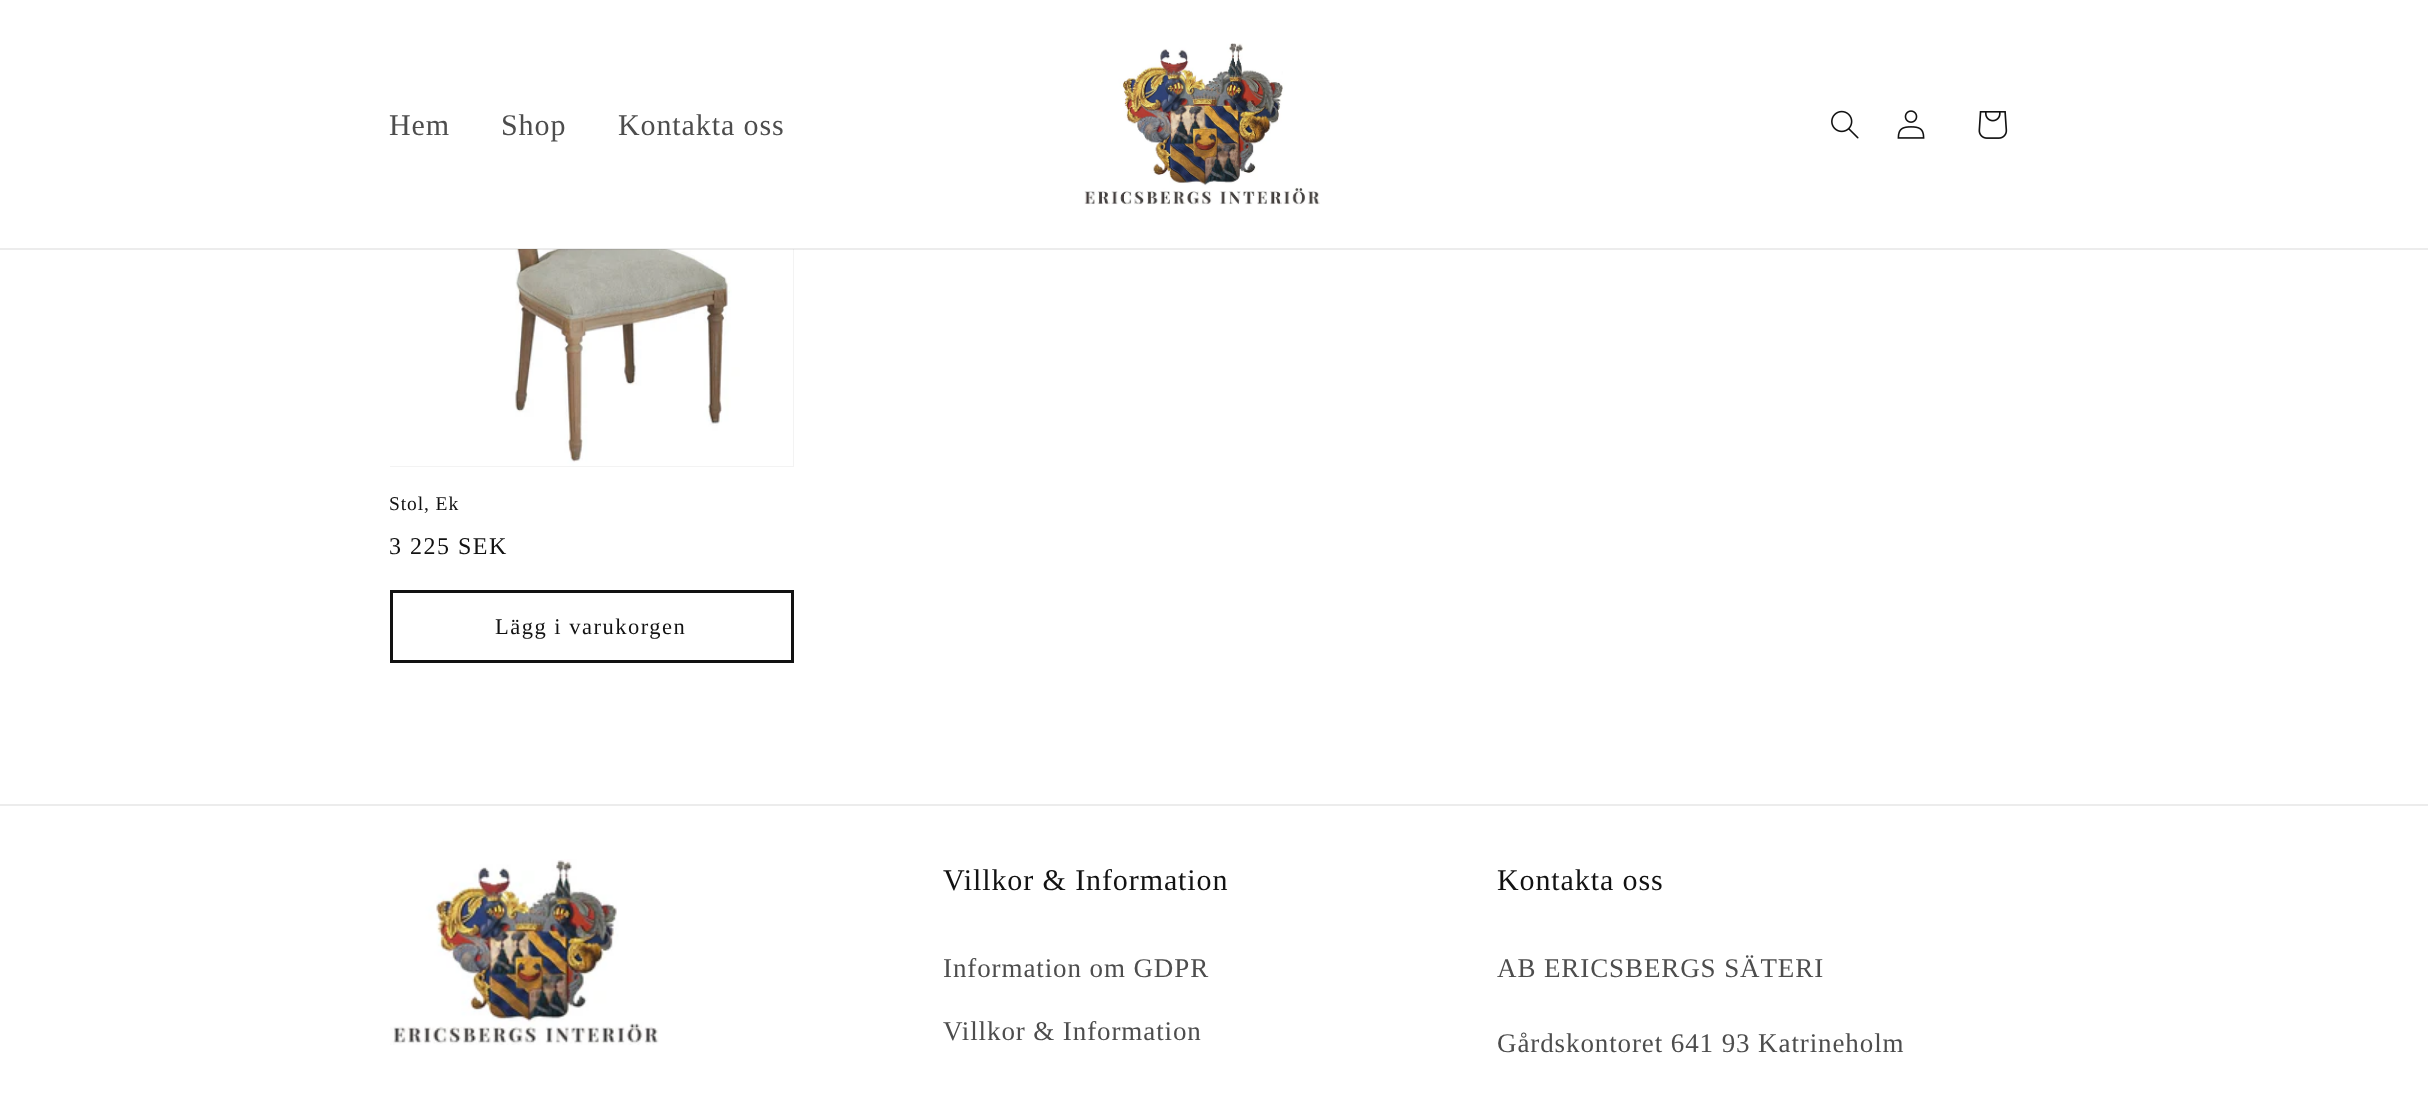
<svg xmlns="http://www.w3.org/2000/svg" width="2428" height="1104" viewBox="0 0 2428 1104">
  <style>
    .t1 { font: 30px Liberation Serif; letter-spacing: 0.9px; fill: #4d4d4d; }
    .t2 { font: 19.5px Liberation Serif; letter-spacing: 0.9px; fill: #121212; }
    .t3 { font: 24px Liberation Serif; letter-spacing: 1.5px; fill: #121212; }
    .t4 { font: 22.5px Liberation Serif; letter-spacing: 1.5px; fill: #121212; }
    .t5 { font: 30px Liberation Serif; letter-spacing: 0.9px; fill: #121212; }
    .t6 { font: 27px Liberation Serif; letter-spacing: 0.9px; fill: #4d4d4d; }
  </style>
  <rect width="100%" height="100%" fill="#fff"/>
  <rect x="390" y="249" width="404" height="218" fill="#f3f3f3"/>
  <image x="390" y="249" width="403" height="217" href="images/5.png"/>
  <rect x="0" y="248" width="2428" height="2" fill="#12121214"/>
  <text x="389" y="135" class="t1">Hem</text>
  <text x="501" y="135" class="t1">Shop</text>
  <text x="618" y="135" class="t1">Kontakta oss</text>
  <image x="1084" y="43" width="236" height="162" href="images/1.png"/>
  <image x="1831" y="110" width="28" height="29" href="images/2.png"/>
  <image x="1897" y="110" width="28" height="29" href="images/3.png"/>
  <image x="1978" y="111" width="30" height="28" href="images/4.png"/>
  <text x="389" y="510" class="t2">Stol, Ek</text>
  <text x="389" y="554" class="t3">3 225 SEK</text>
  <rect x="391.5" y="591.5" width="401" height="70" fill="none" stroke="#121212" stroke-width="3"/>
  <text x="495" y="634" class="t4">Lägg i varukorgen</text>
  <rect x="0" y="804" width="2428" height="2" fill="#ececec"/>
  <image x="390" y="859" width="269" height="186" href="images/6.png"/>
  <text x="943" y="890" class="t5">Villkor &amp; Information</text>
  <text x="943" y="977" class="t6">Information om GDPR</text>
  <text x="943" y="1040" class="t6">Villkor &amp; Information</text>
  <text x="1497" y="890" class="t5">Kontakta oss</text>
  <text x="1497" y="977" class="t6">AB ERICSBERGS SÄTERI</text>
  <text x="1497" y="1052" class="t6">Gårdskontoret 641 93 Katrineholm</text>
</svg>
